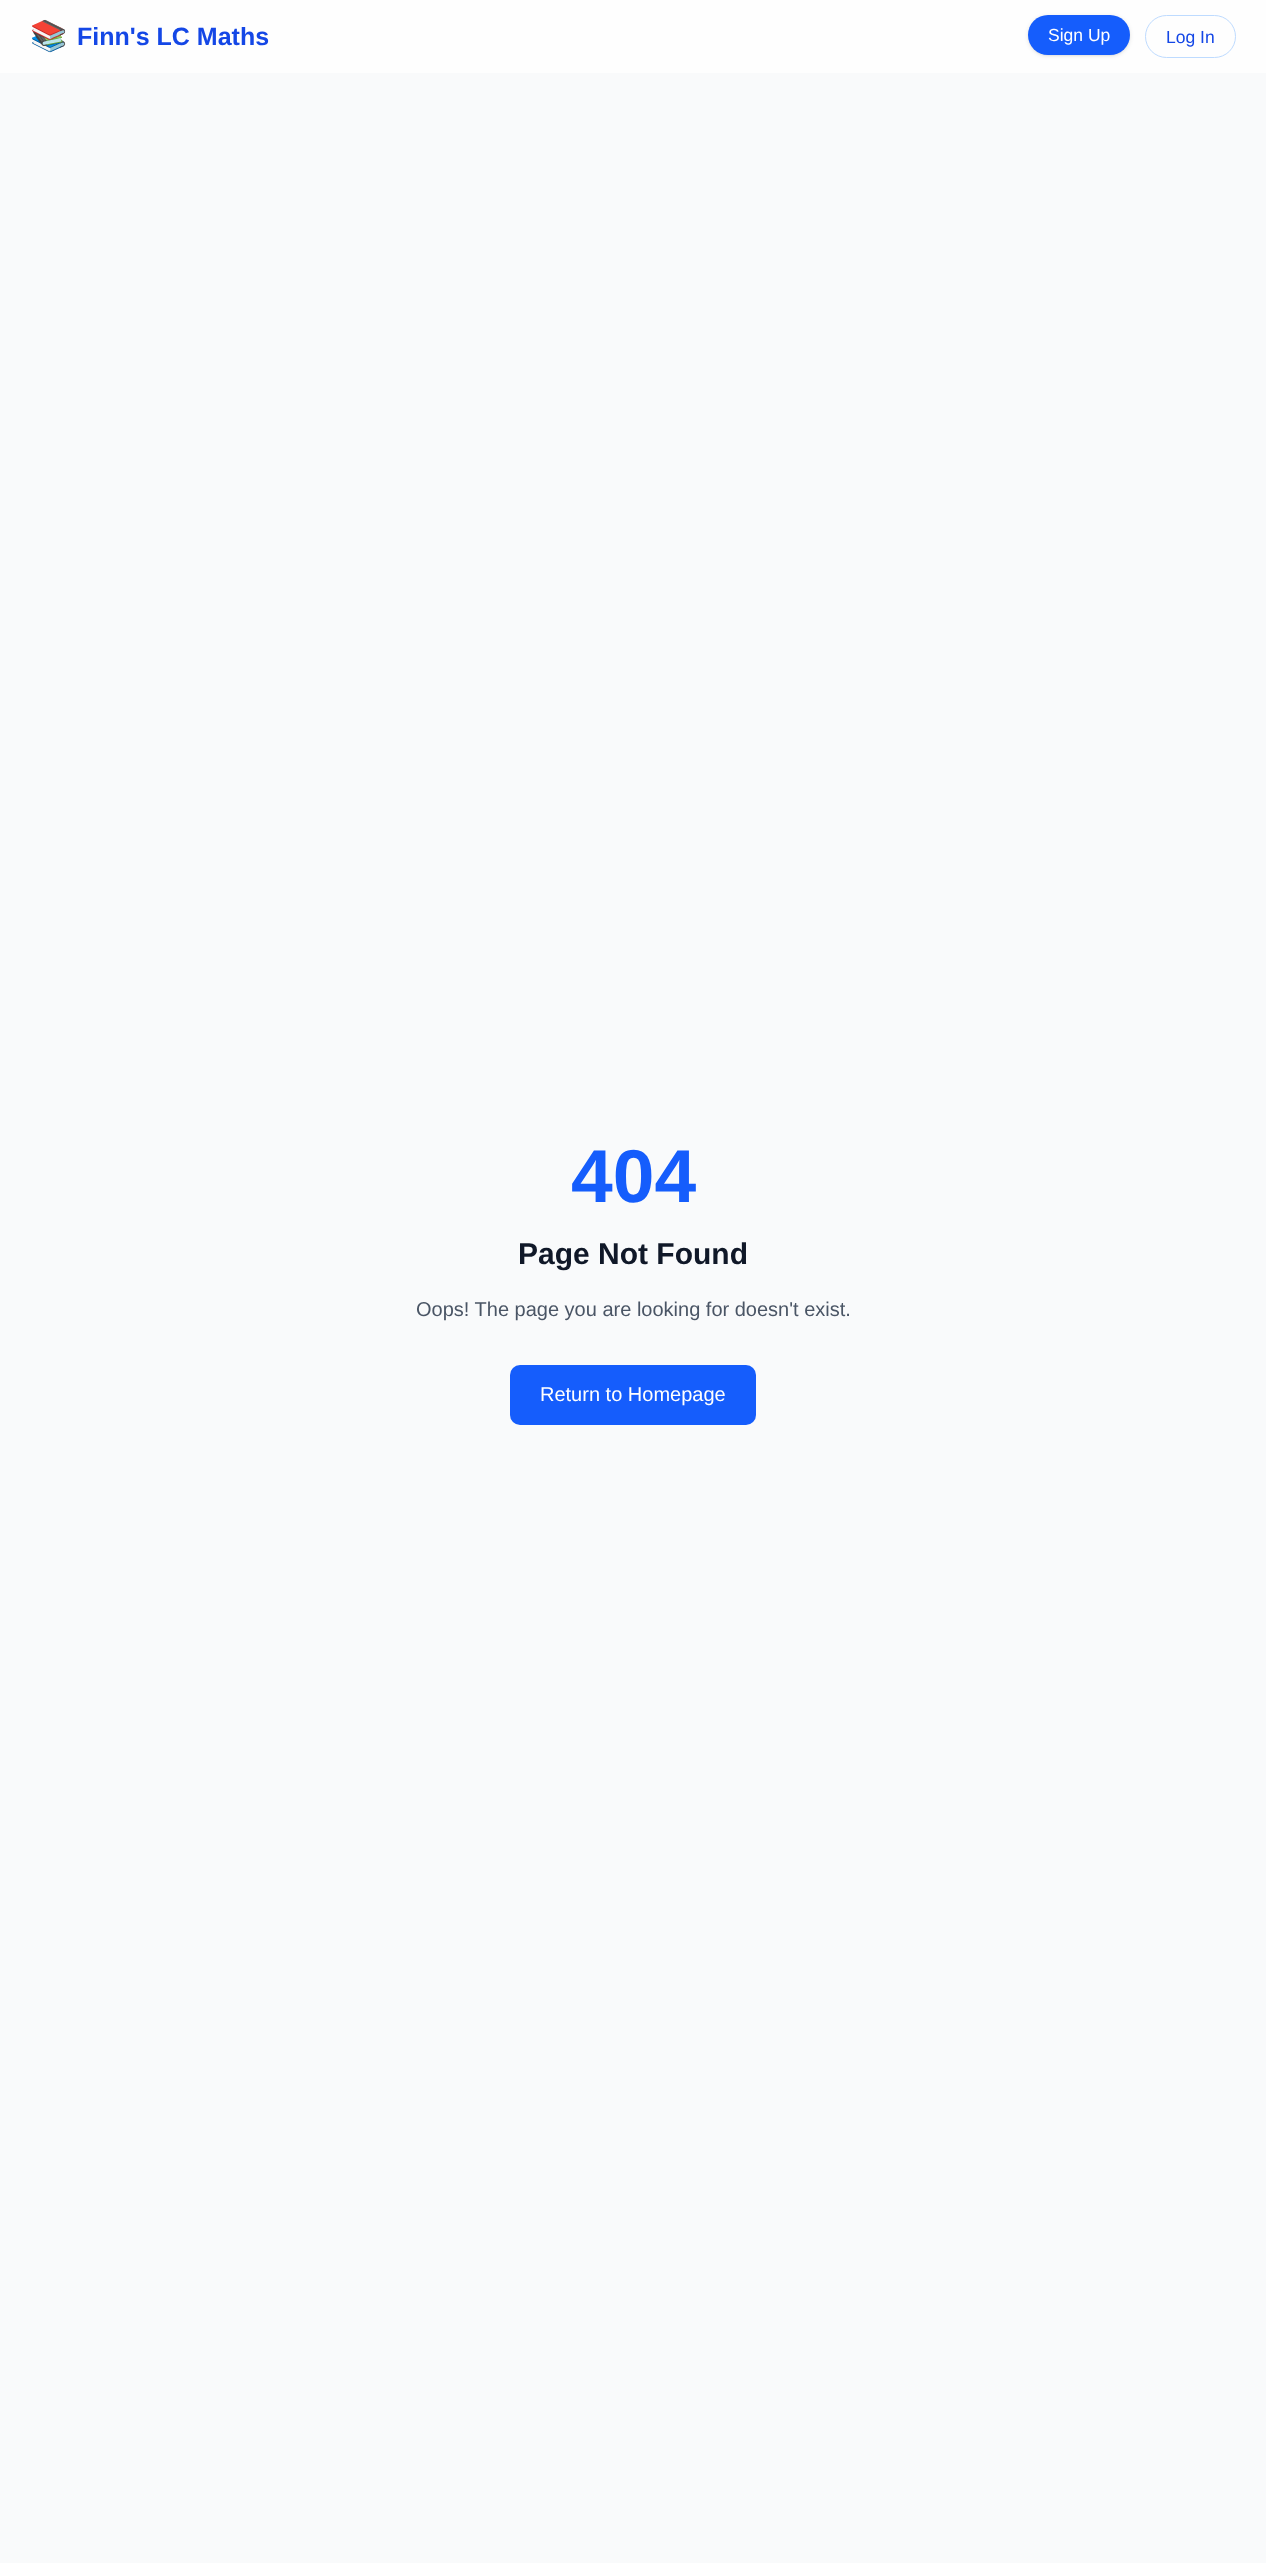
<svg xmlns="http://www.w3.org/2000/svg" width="1266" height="2563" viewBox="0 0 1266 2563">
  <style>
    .t1 { font: bold 30px Noto Color Emoji; fill: #1447e6; }
    .t2 { font: bold 25px Liberation Sans; fill: #1447e6; }
    .t3 { font: 17.5px Liberation Sans; fill: #fff; }
    .t4 { font: 17.5px Liberation Sans; fill: #1447e6; }
    .t5 { font: bold 75px Liberation Sans; fill: #155dfc; }
    .t6 { font: bold 30px Liberation Sans; fill: #101828; }
    .t7 { font: 20px Liberation Sans; fill: #4a5565; }
    .t8 { font: 20px Liberation Sans; fill: #fff; }
  </style>
  <rect width="100%" height="100%" fill="#f9fafb"/>
  <rect x="0" y="0" width="1266" height="73" fill="#fefefe"/>
  <text x="30" y="46" class="t1">📚</text>
  <text x="77" y="45" class="t2">Finn's LC Maths</text>
  <rect x="1029" y="18" width="100" height="37" rx="18.5" fill="#0000001a" filter="blur(1px)"/>
  <rect x="1028" y="16" width="102" height="40" rx="20" fill="#0000001a" filter="blur(2px)"/>
  <rect x="1028" y="15" width="102" height="40" rx="20" fill="#155dfc"/>
  <text x="1048" y="41" class="t3">Sign Up</text>
  <rect x="1145.5" y="15.5" width="90" height="42" rx="21" fill="none" stroke="#bedbff"/>
  <text x="1166" y="43" class="t4">Log In</text>
  <text x="571" y="1202" class="t5">404</text>
  <text x="518" y="1264" class="t6">Page Not Found</text>
  <text x="416" y="1316" class="t7">Oops! The page you are looking for doesn't exist.</text>
  <rect x="510" y="1365" width="246" height="60" rx="10" fill="#155dfc"/>
  <text x="540" y="1401" class="t8">Return to Homepage</text>
</svg>
